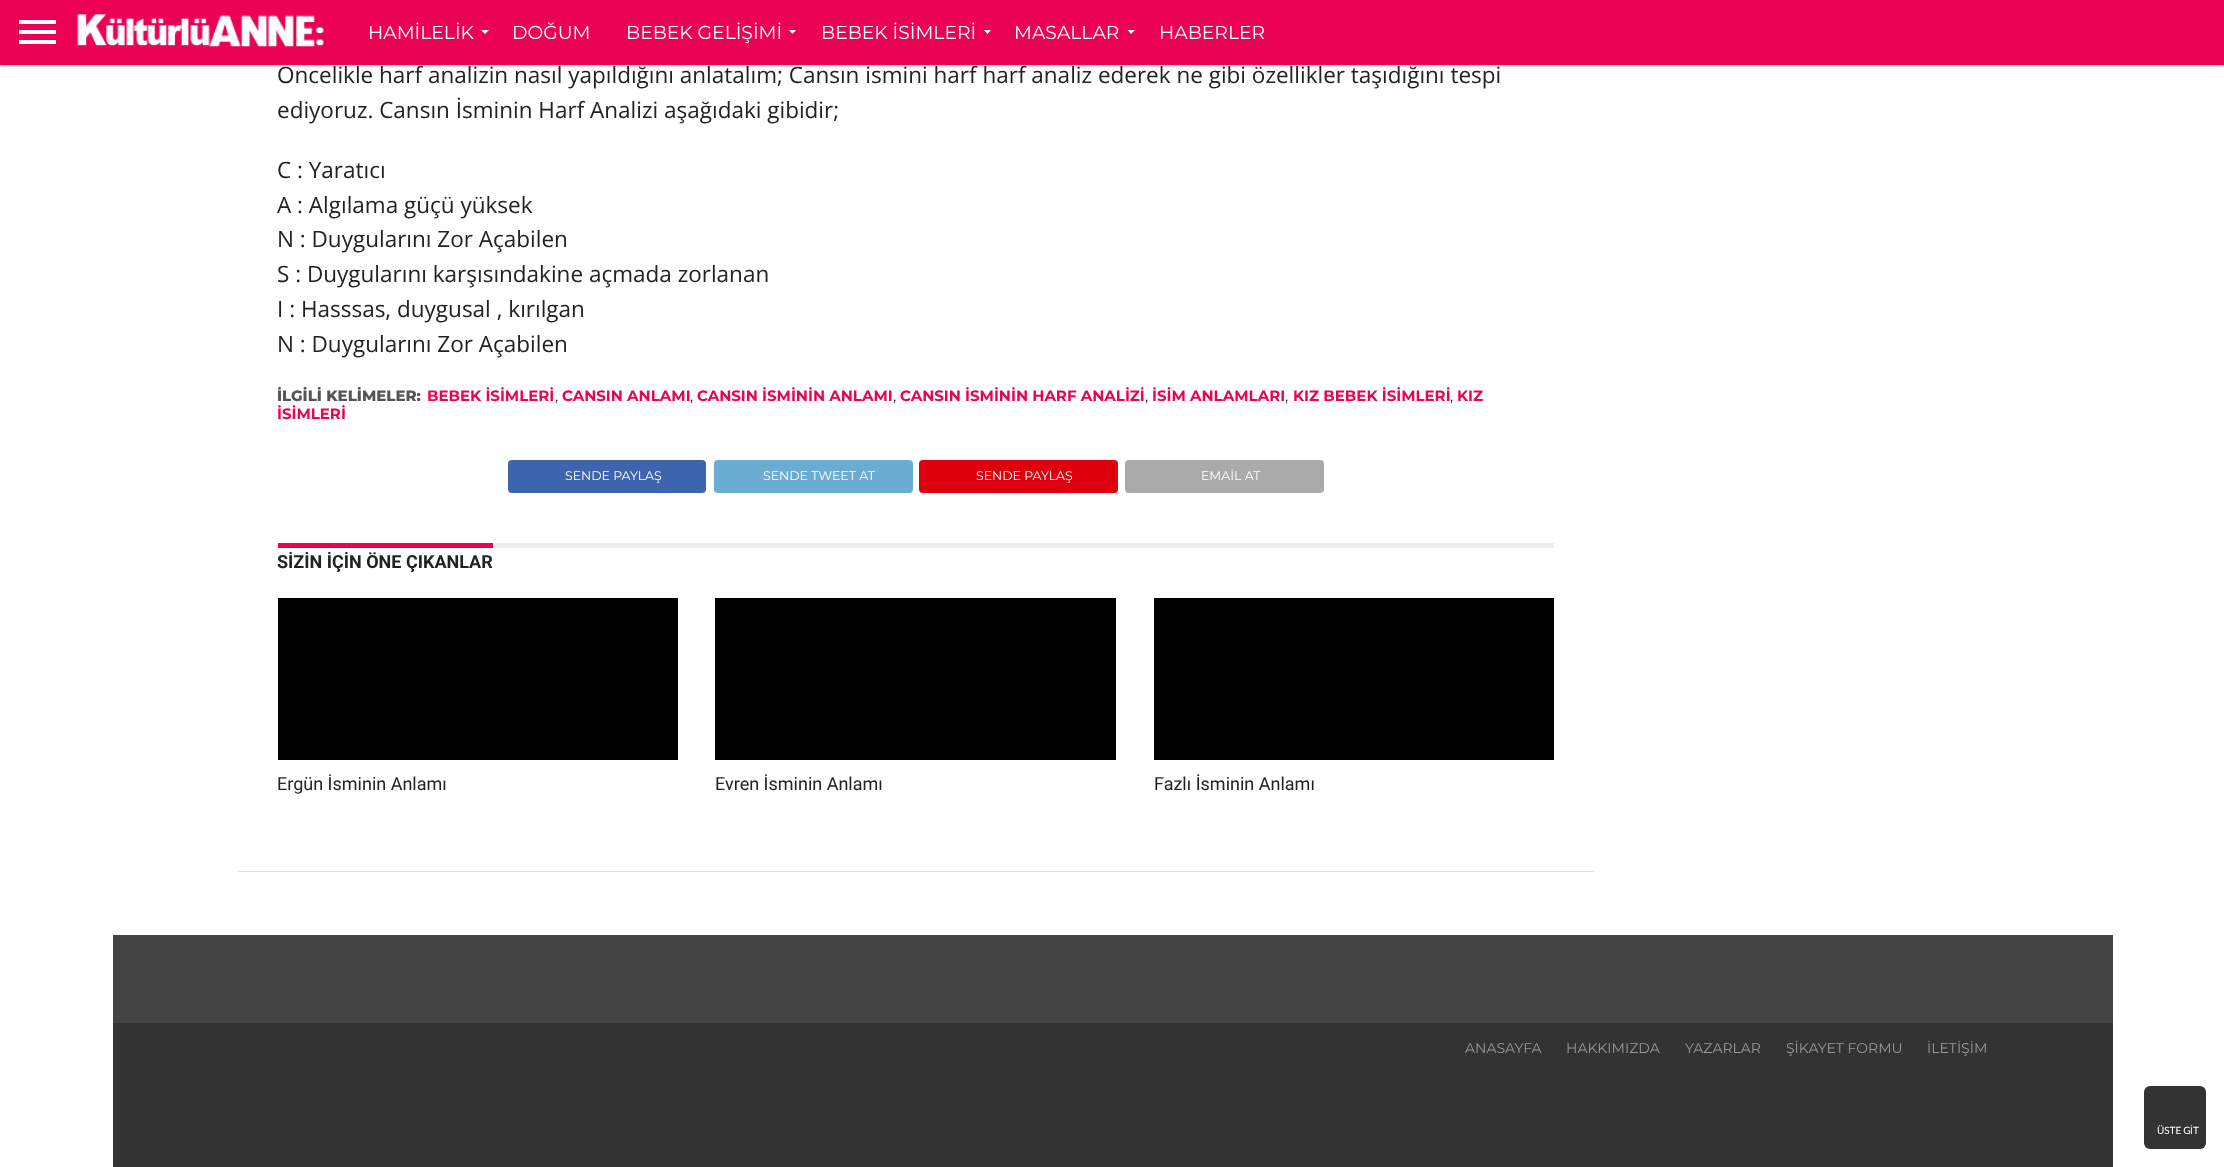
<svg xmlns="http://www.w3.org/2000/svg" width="2224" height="1167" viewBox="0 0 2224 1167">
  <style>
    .t1 { font: 22.5px Open Sans; fill: #222; }
    .t2 { font: 18.75px Montserrat; fill: #fff; }
    .t3 { font: 800 15px Montserrat; fill: #555; }
    .t4 { font: bold 15px Montserrat; fill: #eb0254; }
    .t5 { font: 15px Montserrat; fill: #222; }
    .t6 { font: 12.5px Montserrat; fill: #fff; }
    .t7 { font: bold 18px Roboto; fill: #222; }
    .t8 { font: 18px Roboto; fill: #222; }
    .t9 { font: 14px Montserrat; fill: #999; }
    .t10 { font: 10px Lato; fill: #fff; }
    .t11 { font: 10px Liberation Sans; fill: #fff; }
  </style>
  <rect width="100%" height="100%" fill="#fff"/>
  <rect x="0" y="3" width="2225" height="62" fill="#0000004d" filter="blur(2px)"/>
  <text x="277" y="83" class="t1">Öncelikle harf analizin nasıl yapıldığını anlatalım; Cansın ismini harf harf analiz ederek ne gibi özellikler taşıdığını tespi</text>
  <rect x="0" y="0" width="2224" height="65" fill="#eb0254"/>
  <rect x="19" y="20" width="37" height="4" fill="#fff"/>
  <rect x="19" y="30" width="37" height="4" fill="#fff"/>
  <rect x="19" y="40" width="37" height="4" fill="#fff"/>
  <image x="77" y="14" width="247" height="33" href="images/1.png"/>
  <text x="368" y="39" class="t2">HAMİLELİK</text>
  <path d="M481 30H489L485 34Z" fill="#fff"/>
  <text x="512" y="39" class="t2">DOĞUM</text>
  <text x="626" y="39" class="t2">BEBEK GELİŞİMİ</text>
  <path d="M789 30H796L792.5 34Z" fill="#fff"/>
  <text x="821" y="39" class="t2">BEBEK İSİMLERİ</text>
  <path d="M984 30H991L987.5 34Z" fill="#fff"/>
  <text x="1014" y="39" class="t2">MASALLAR</text>
  <path d="M1127.5 30H1135L1131 34Z" fill="#fff"/>
  <text x="1159" y="39" class="t2">HABERLER</text>
  <rect x="238" y="871" width="1356" height="1" fill="#ddd"/>
  <text x="277" y="118" class="t1">ediyoruz. Cansın İsminin Harf Analizi aşağıdaki gibidir;</text>
  <text x="277" y="178" class="t1">C : Yaratıcı</text>
  <text x="277" y="213" class="t1">A : Algılama güçü yüksek</text>
  <text x="277" y="247" class="t1">N : Duygularını Zor Açabilen</text>
  <text x="277" y="282" class="t1">S : Duygularını karşısındakine açmada zorlanan</text>
  <text x="277" y="317" class="t1">I : Hasssas, duygusal , kırılgan</text>
  <text x="277" y="352" class="t1">N : Duygularını Zor Açabilen</text>
  <text x="277" y="401" class="t3">İLGİLİ KELİMELER:</text>
  <text x="427" y="401" class="t4">BEBEK İSİMLERİ</text>
  <text x="562" y="401" class="t4">CANSIN ANLAMI</text>
  <text x="697" y="401" class="t4">CANSIN İSMİNİN ANLAMI</text>
  <text x="900" y="401" class="t4">CANSIN İSMİNİN HARF ANALİZİ</text>
  <text x="1152" y="401" class="t4">İSİM ANLAMLARI</text>
  <text x="1293" y="401" class="t4">KIZ BEBEK İSİMLERİ</text>
  <text x="1457" y="401" class="t4">KIZ</text>
  <text x="555" y="401" class="t5">,</text>
  <text x="690" y="401" class="t5">,</text>
  <text x="893" y="401" class="t5">,</text>
  <text x="1145" y="401" class="t5">,</text>
  <text x="1285" y="401" class="t5">,</text>
  <text x="1450" y="401" class="t5">,</text>
  <text x="277" y="419" class="t4">İSİMLERİ</text>
  <rect x="508" y="460" width="198" height="33" rx="4" fill="#3e64ad"/>
  <text x="565" y="480" class="t6">SENDE PAYLAŞ</text>
  <rect x="714" y="460" width="199" height="33" rx="4" fill="#6aadd1"/>
  <text x="763" y="480" class="t6">SENDE TWEET AT</text>
  <rect x="919" y="460" width="199" height="33" rx="4" fill="#de010d"/>
  <text x="976" y="480" class="t6">SENDE PAYLAŞ</text>
  <rect x="1125" y="460" width="199" height="33" rx="4" fill="#aaa"/>
  <text x="1201" y="480" class="t6">EMAİL AT</text>
  <rect x="493" y="543" width="1061" height="5" fill="#eee"/>
  <rect x="278" y="543" width="215" height="5" fill="#eb0254"/>
  <text x="277" y="568" class="t7">SİZİN İÇİN ÖNE ÇIKANLAR</text>
  <rect x="278" y="598" width="400" height="162" fill="#000"/>
  <text x="277" y="790" class="t8">Ergün İsminin Anlamı</text>
  <rect x="715" y="598" width="401" height="162" fill="#000"/>
  <text x="715" y="790" class="t8">Evren İsminin Anlamı</text>
  <rect x="1154" y="598" width="400" height="162" fill="#000"/>
  <text x="1154" y="790" class="t8">Fazlı İsminin Anlamı</text>
  <rect x="113" y="935" width="2000" height="88" fill="#444"/>
  <rect x="113" y="1023" width="2000" height="144" fill="#333"/>
  <text x="1465" y="1053" class="t9">ANASAYFA</text>
  <text x="1566" y="1053" class="t9">HAKKIMIZDA</text>
  <text x="1685" y="1053" class="t9">YAZARLAR</text>
  <text x="1786" y="1053" class="t9">ŞİKAYET FORMU</text>
  <text x="1927" y="1053" class="t9">İLETİŞİM</text>
  <rect x="2144" y="1086" width="62" height="63" rx="6" fill="#333"/>
  <text x="2157" y="1134" class="t10">ÜSTE G</text>
  <text x="2190" y="1134" class="t11">İ</text>
  <text x="2193" y="1134" class="t10">T</text>
</svg>
